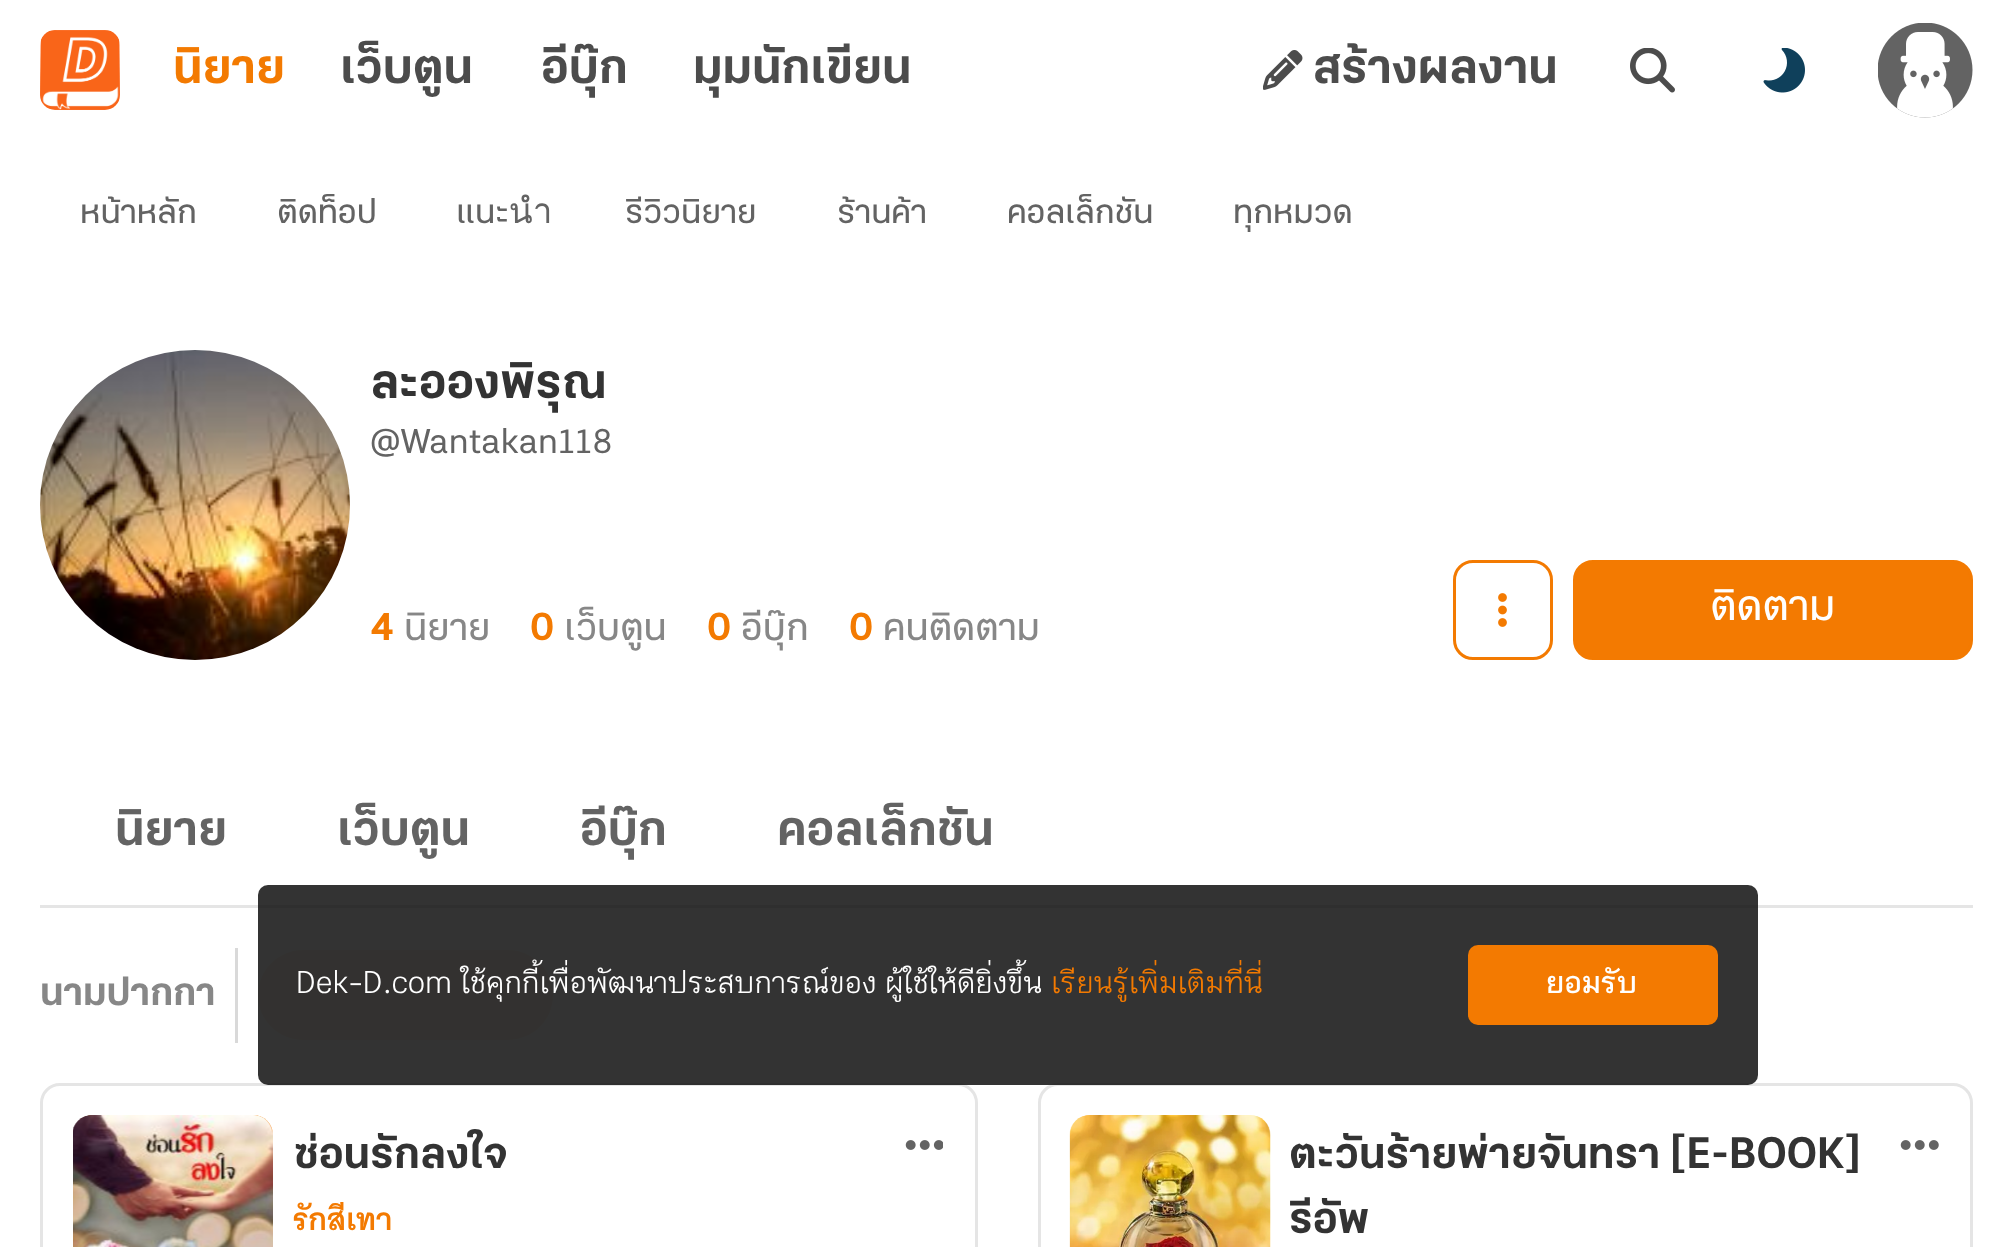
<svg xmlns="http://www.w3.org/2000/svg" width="2012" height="1247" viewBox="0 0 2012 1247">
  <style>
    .t1 { font: bold 50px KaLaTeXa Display; fill: #f37a01; }
    .t2 { font: bold 50px KaLaTeXa Display; fill: #4c4c4c; }
    .t3 { font: 35px KaLaTeXa Display; fill: #636363; }
    .t4 { font: bold 50px KaLaTeXa Display; fill: #333; }
    .t5 { font: bold 40px KaLaTeXa Display; fill: #f37a01; }
    .t6 { font: 40px KaLaTeXa Display; fill: #878787; }
    .t7 { font: 45px KaLaTeXa Display; fill: #fff; }
    .t8 { font: bold 50px KaLaTeXa Display; fill: #636363; }
    .t9 { font: bold 40px KaLaTeXa Display; fill: #878787; }
    .t10 { font: bold 45px KaLaTeXa Display; fill: #333; }
    .t11 { font: bold 30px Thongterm; fill: #f37a01; }
    .t12 { font: 35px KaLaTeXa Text; fill: #fff; }
    .t13 { font: 35px KaLaTeXa Text; fill: #f37a01; }
    .t14 { font: bold 35px KaLaTeXa Text; fill: #fff; }
  </style>
  <defs>
    <clipPath id="clip1"><rect x="293" y="1125" width="265" height="65"/></clipPath>
    <clipPath id="clip2"><rect x="1290" y="1125" width="650" height="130"/></clipPath>
  </defs>
  <rect width="100%" height="100%" fill="#fff"/>
  <image x="40" y="30" width="80" height="80" href="images/1.png"/>
  <text x="173" y="83" class="t1">นิยาย</text>
  <text x="340" y="83" class="t2">เว็บตูน</text>
  <text x="541" y="83" class="t2">อีบุ๊ก</text>
  <text x="693" y="83" class="t2">มุมนักเขียน</text>
  <image x="1263" y="50" width="40" height="40" href="images/2.png"/>
  <text x="1312" y="83" class="t2">สร้างผลงาน</text>
  <image x="1630" y="48" width="45" height="45" href="images/3.png"/>
  <image x="1763" y="48" width="42" height="45" href="images/4.png"/>
  <image x="1878" y="23" width="95" height="95" href="images/5.png"/>
  <text x="80" y="223" class="t3">หน้าหลัก</text>
  <text x="277" y="223" class="t3">ติดท็อป</text>
  <text x="456" y="223" class="t3">แนะนำ</text>
  <text x="625" y="223" class="t3">รีวิวนิยาย</text>
  <text x="837" y="223" class="t3">ร้านค้า</text>
  <text x="1007" y="223" class="t3">คอลเล็กชัน</text>
  <text x="1233" y="223" class="t3">ทุกหมวด</text>
  <image x="40" y="350" width="310" height="310" href="images/6.png"/>
  <text x="370" y="398" class="t4">ละอองพิรุณ</text>
  <text x="370" y="453" class="t3">@Wantakan118</text>
  <text x="370" y="640" class="t5">4</text>
  <text x="404" y="640" class="t6">นิยาย</text>
  <text x="530" y="640" class="t5">0</text>
  <text x="564" y="640" class="t6">เว็บตูน</text>
  <text x="707" y="640" class="t5">0</text>
  <text x="741" y="640" class="t6">อีบุ๊ก</text>
  <text x="849" y="640" class="t5">0</text>
  <text x="883" y="640" class="t6">คนติดตาม</text>
  <rect x="1454.5" y="561.5" width="97" height="97" rx="18.5" fill="none" stroke="#f37a01" stroke-width="3"/>
  <image x="1498" y="593" width="9" height="34" href="images/7.png"/>
  <rect x="1574.5" y="561.5" width="397" height="97" rx="18.5" fill="#f37a01" stroke="#f37a01" stroke-width="3"/>
  <text x="1710" y="620" class="t7">ติดตาม</text>
  <rect x="40" y="905" width="1933" height="3" fill="#e5e5e5"/>
  <text x="115" y="845" class="t8">นิยาย</text>
  <text x="337" y="845" class="t8">เว็บตูน</text>
  <text x="580" y="845" class="t8">อีบุ๊ก</text>
  <text x="777" y="845" class="t8">คอลเล็กชัน</text>
  <text x="40" y="1005" class="t9">นามปากกา</text>
  <rect x="235" y="948" width="3" height="95" fill="#d9d9d9"/>
  <rect x="258" y="950" width="295" height="90" rx="45" fill="#fef2e6"/>
  <rect x="41.5" y="1084.5" width="935" height="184" rx="18.5" fill="none" stroke="#e5e5e5" stroke-width="3"/>
  <rect x="73" y="1115" width="200" height="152" rx="20" fill="#f37a01"/>
  <image x="73" y="1115" width="200" height="132" href="images/8.png"/>
  <image x="73" y="1115" width="200" height="20" href="images/9.png"/>
  <g clip-path="url(#clip1)">
    <text x="293" y="1168" class="t10">ซ่อนรักลงใจ</text>
  </g>
  <text x="293" y="1230" class="t11">รักสีเทา</text>
  <image x="905" y="1140" width="38" height="10" href="images/10.png"/>
  <rect x="1039.5" y="1084.5" width="932" height="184" rx="18.5" fill="none" stroke="#e5e5e5" stroke-width="3"/>
  <image x="1069" y="1115" width="202" height="132" href="images/11.png"/>
  <image x="1070" y="1115" width="200" height="132" href="images/12.png"/>
  <text x="1289" y="1168" class="t10">ตะวันร้ายพ่ายจันทรา [E-BOOK]</text>
  <g clip-path="url(#clip2)">
    <text x="1289" y="1233" class="t10">รีอัพ</text>
  </g>
  <image x="1900" y="1140" width="39" height="10" href="images/13.png"/>
  <rect x="258" y="885" width="1500" height="200" rx="10" fill="#0f0f0fd9"/>
  <text x="296" y="993" class="t12">Dek-D.com ใช้คุกกี้เพื่อพัฒนาประสบการณ์ของ ผู้ใช้ให้ดียิ่งขึ้น</text>
  <text x="1051" y="993" class="t13">เรียนรู้เพิ่มเติมที่นี่</text>
  <rect x="1468" y="945" width="250" height="80" rx="10" fill="#f37a01"/>
  <text x="1546" y="993" class="t14">ยอมรับ</text>
</svg>
